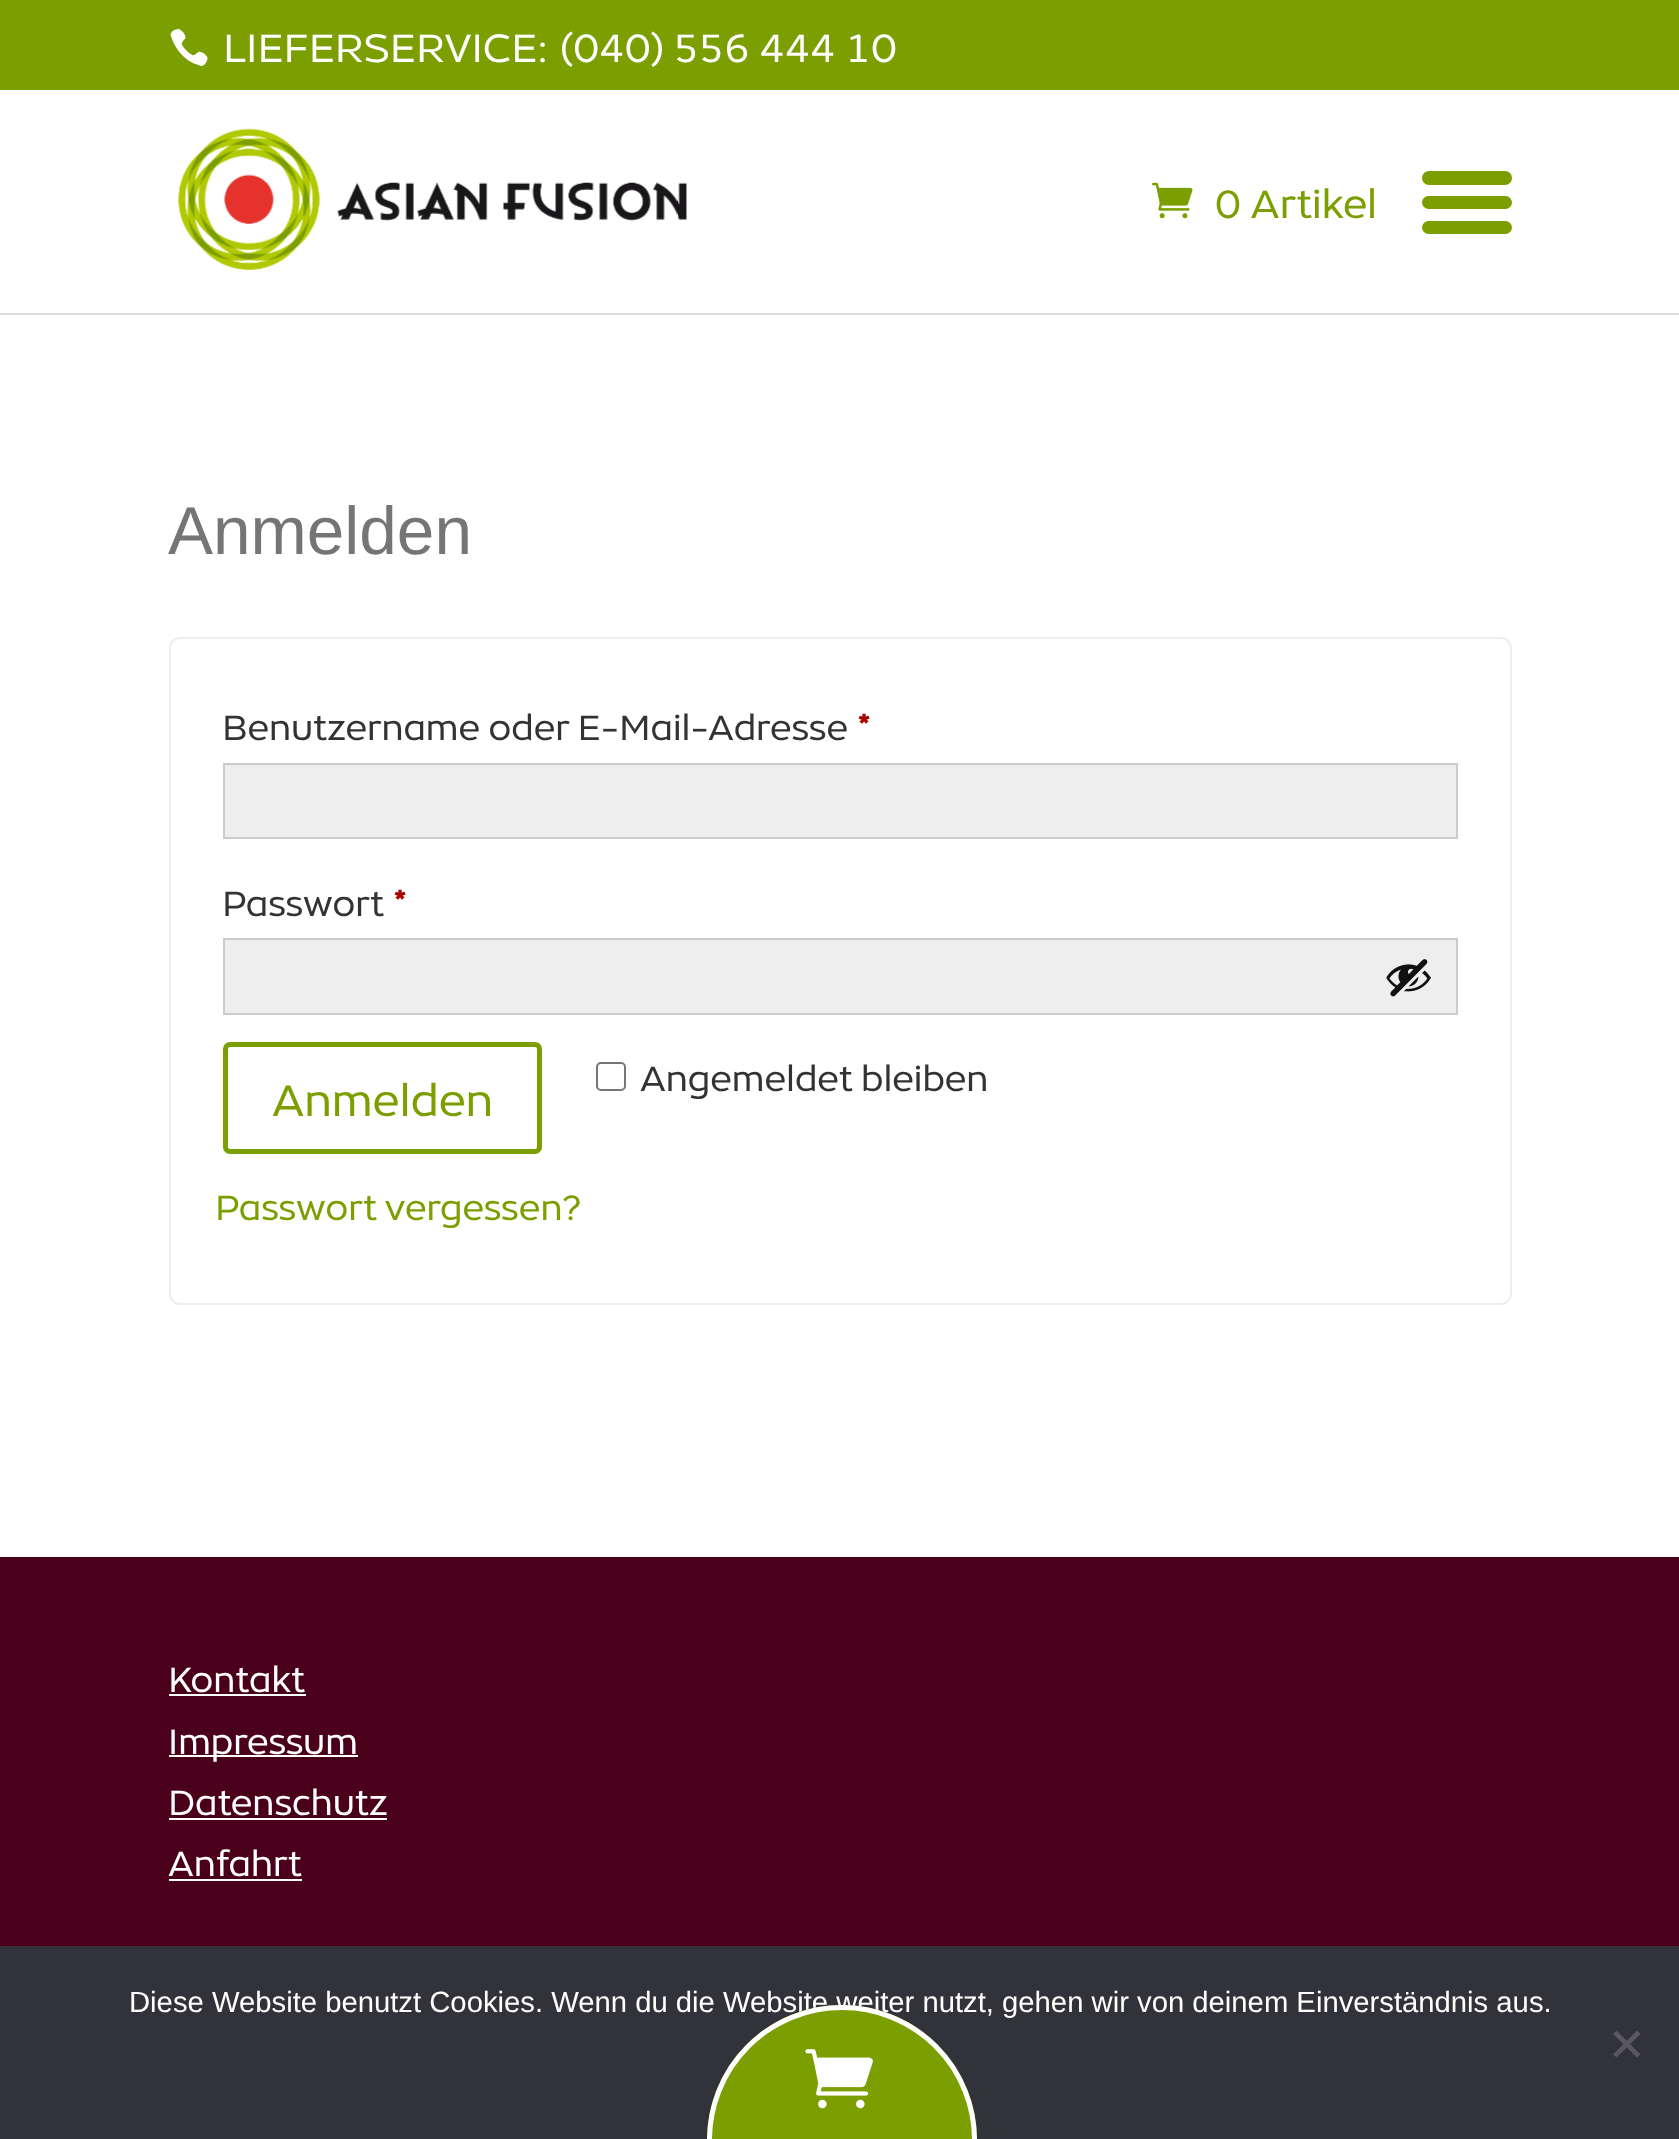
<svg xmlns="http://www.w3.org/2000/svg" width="1679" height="2139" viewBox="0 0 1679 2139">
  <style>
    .t1 { font: 40.5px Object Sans; fill: #fff; }
    .t2 { font: 40.5px Object Sans; fill: #7b9e00; }
    .t3 { font: 67.5px Liberation Sans; fill: #757575; }
    .t4 { font: 36px Object Sans; fill: #333; }
    .t5 { font: bold 36px Object Sans; fill: #a00; }
    .t6 { font: 45px Object Sans; fill: #7b9e00; }
    .t7 { font: 36px Object Sans; fill: #7b9e00; }
    .t8 { font: 36px Object Sans; fill: #fff; }
    .t9 { font: 29.25px Liberation Sans; fill: #fff; }
  </style>
  <rect width="100%" height="100%" fill="#fff"/>
  <rect x="0" y="0" width="1679" height="90" fill="#7b9e00"/>
  <image x="170" y="29" width="38" height="38" href="images/1.png"/>
  <text x="223" y="62" class="t1">LIEFERSERVICE: (040) 556 444 10</text>
  <rect x="0" y="313" width="1679" height="2" fill="#ddd"/>
  <image x="178" y="128" width="509" height="142" href="images/2.png"/>
  <image x="1152" y="182" width="41" height="37" href="images/3.png"/>
  <text x="1215" y="218" word-spacing="1" class="t2">0 Artikel</text>
  <rect x="1422" y="171" width="90" height="14" rx="7" fill="#7b9e00"/>
  <rect x="1422" y="196" width="90" height="13" rx="6.5" fill="#7b9e00"/>
  <rect x="1422" y="221" width="90" height="13" rx="6.5" fill="#7b9e00"/>
  <text x="168" y="554" class="t3">Anmelden</text>
  <rect x="170" y="638" width="1341" height="666" rx="10" fill="none" stroke="#eee" stroke-width="2"/>
  <text x="222" y="740" class="t4">Benutzername oder E-Mail-Adresse</text>
  <text x="857" y="740" class="t5">*</text>
  <rect x="224" y="764" width="1233" height="74" fill="#eee" stroke="#ccc" stroke-width="2"/>
  <text x="222" y="916" class="t4">Passwort</text>
  <text x="393" y="916" class="t5">*</text>
  <rect x="224" y="939" width="1233" height="75" fill="#eee" stroke="#ccc" stroke-width="2"/>
  <image x="1386" y="959" width="45" height="38" href="images/4.png"/>
  <rect x="225.5" y="1044.5" width="314" height="107" rx="4.5" fill="none" stroke="#7b9e00" stroke-width="5"/>
  <text x="272" y="1116" class="t6">Anmelden</text>
  <rect x="597" y="1063" width="28" height="27" rx="4" fill="none" stroke="#767676" stroke-width="2"/>
  <text x="640" y="1091" class="t4">Angemeldet bleiben</text>
  <text x="215" y="1220" class="t7">Passwort vergessen?</text>
  <rect x="0" y="1557" width="1679" height="389" fill="#4a001b"/>
  <text x="168" y="1692" class="t8">Kontakt</text>
  <rect x="169" y="1694" width="137" height="2" fill="#fff"/>
  <rect x="169" y="1755" width="189" height="2" fill="#fff"/>
  <text x="168" y="1754" class="t8">Impressum</text>
  <text x="168" y="1815" class="t8">Datenschutz</text>
  <rect x="169" y="1818" width="218" height="2" fill="#fff"/>
  <text x="168" y="1876" class="t8">Anfahrt</text>
  <rect x="169" y="1879" width="133" height="2" fill="#fff"/>
  <rect x="0" y="1946" width="1679" height="193" fill="#32323a"/>
  <text x="129" y="2012" class="t9">Diese Website benutzt Cookies. Wenn du die Website weiter nutzt, gehen wir von deinem Einverständnis aus.</text>
  <path d="M842 2005C916.5 2005 977 2065.5 977 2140H707C707 2065.5 767.5 2005 842 2005Z" fill="#7b9e00"/>
  <circle cx="842" cy="2140" r="132.5" fill="none" stroke="#fff" stroke-width="5"/>
  <image x="805" y="2049" width="68" height="60" href="images/5.png"/>
  <path d="M1637 2030.5L1640.5 2034L1616.5 2057.5L1613 2054.5Z" fill="#59595d"/>
  <path d="M1613 2034L1616.5 2030.5L1640.5 2054.5L1637 2057.5Z" fill="#59595d"/>
</svg>
